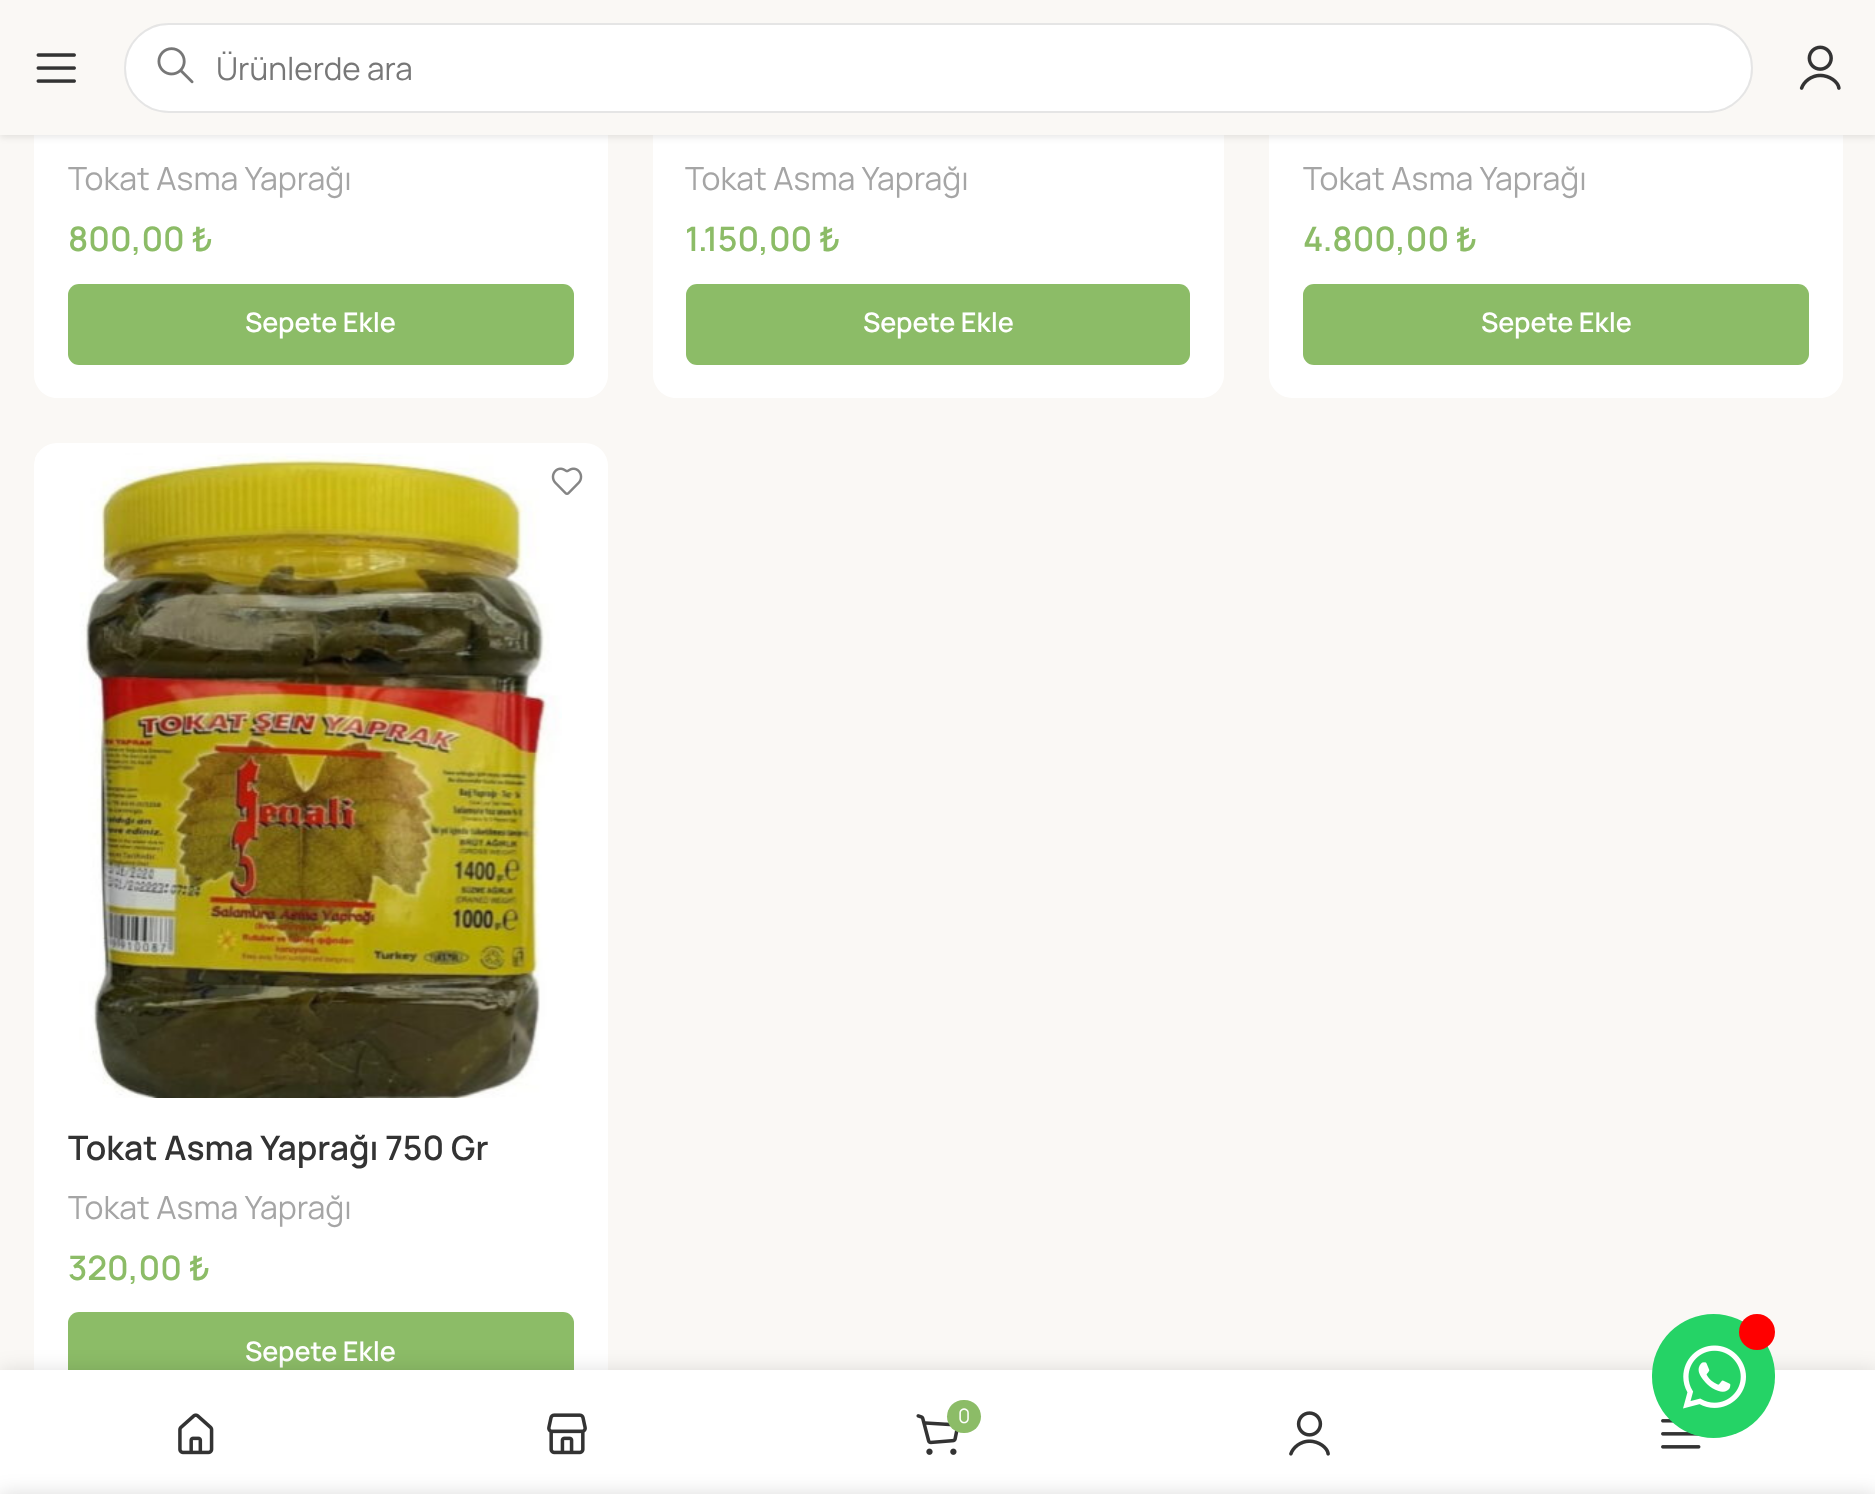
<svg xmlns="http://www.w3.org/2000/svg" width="1875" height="1494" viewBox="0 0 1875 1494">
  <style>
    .t1 { font: 200 31.5px Manrope; fill: #777; }
    .t2 { font: 200 32px Manrope; fill: #a5a5a5; }
    .t3 { font: 200 33.75px 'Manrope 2'; fill: #8cbc67; }
    .t4 { font: 200 27px 'Manrope 2'; fill: #fff; }
    .t5 { font: 200 33.75px 'Manrope 2'; fill: #333; }
    .t6 { font: 200 20px Manrope; fill: #fff; }
  </style>
  <defs>
    <clipPath id="clip1"><rect x="68" y="1125" width="420" height="47"/></clipPath>
  </defs>
  <rect width="100%" height="100%" fill="#faf8f5"/>
  <path d="M34 68H608V375C608 387.5 597.5 398 585 398H57C44.5 398 34 387.5 34 375Z" fill="#fff"/>
  <path d="M653 68H1224V375C1224 387.5 1213.5 398 1201 398H676C663.5 398 653 387.5 653 375Z" fill="#fff"/>
  <path d="M1269 68H1843V375C1843 387.5 1832.5 398 1820 398H1292C1279.5 398 1269 387.5 1269 375Z" fill="#fff"/>
  <rect x="0" y="2" width="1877" height="135" fill="#0000001a" filter="blur(3.5px)"/>
  <rect x="0" y="0" width="1875" height="135" fill="#faf8f5"/>
  <image x="36" y="53" width="40" height="30" href="images/1.png"/>
  <rect x="124" y="23" width="1629" height="90" rx="45" fill="#fff"/>
  <rect x="125" y="24" width="1627" height="88" rx="44" fill="none" stroke="#0000001a" stroke-width="2"/>
  <image x="157" y="47" width="37" height="37" href="images/2.png"/>
  <text x="216" y="80" class="t1">Ürünlerde ara</text>
  <image x="1799" y="45" width="42" height="45" href="images/3.png"/>
  <text x="68" y="190" class="t2">Tokat Asma Yaprağı</text>
  <text x="68" y="251" class="t3">800,00 ₺</text>
  <rect x="68" y="284" width="506" height="81" rx="11" fill="#8cbc67"/>
  <text x="245" y="332" class="t4">Sepete Ekle</text>
  <text x="685" y="190" class="t2">Tokat Asma Yaprağı</text>
  <text x="685" y="251" class="t3">1.150,00 ₺</text>
  <rect x="686" y="284" width="504" height="81" rx="11" fill="#8cbc67"/>
  <text x="863" y="332" class="t4">Sepete Ekle</text>
  <text x="1303" y="190" class="t2">Tokat Asma Yaprağı</text>
  <text x="1303" y="251" class="t3">4.800,00 ₺</text>
  <rect x="1303" y="284" width="506" height="81" rx="11" fill="#8cbc67"/>
  <text x="1481" y="332" class="t4">Sepete Ekle</text>
  <rect x="34" y="443" width="574" height="984" rx="23" fill="#fff"/>
  <image x="35" y="453" width="527" height="645" href="images/4.png"/>
  <image x="551" y="467" width="32" height="28" href="images/5.png"/>
  <g clip-path="url(#clip1)">
    <text x="68" y="1160" class="t5">Tokat Asma Yaprağı 750 Gr</text>
  </g>
  <text x="68" y="1219" class="t2">Tokat Asma Yaprağı</text>
  <text x="68" y="1280" class="t3">320,00 ₺</text>
  <rect x="68" y="1312" width="506" height="81" rx="11" fill="#8cbc67"/>
  <text x="245" y="1361" class="t4">Sepete Ekle</text>
  <rect x="0" y="1370" width="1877" height="124" fill="#0000001f" filter="blur(10px)"/>
  <rect x="0" y="1370" width="1875" height="124" fill="#fff"/>
  <image x="1661" y="1419" width="40" height="30" href="images/11.png"/>
  <rect x="1652" y="1314" width="123" height="124" rx="61.5" fill="#25d366"/>
  <image x="1683" y="1345" width="63" height="64" href="images/6.png"/>
  <circle cx="1757" cy="1332" r="18" fill="#f00"/>
  <image x="178" y="1413" width="36" height="42" href="images/7.png"/>
  <image x="547" y="1413" width="40" height="42" href="images/8.png"/>
  <image x="916" y="1414" width="43" height="41" href="images/9.png"/>
  <rect x="947" y="1400" width="34" height="33" rx="16.5" fill="#8cbc67"/>
  <text x="958" y="1423" class="t6">0</text>
  <image x="1289" y="1411" width="41" height="45" href="images/10.png"/>
  <rect x="0" y="1494" width="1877" height="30" fill="#00000024" filter="blur(10px)"/>
</svg>
